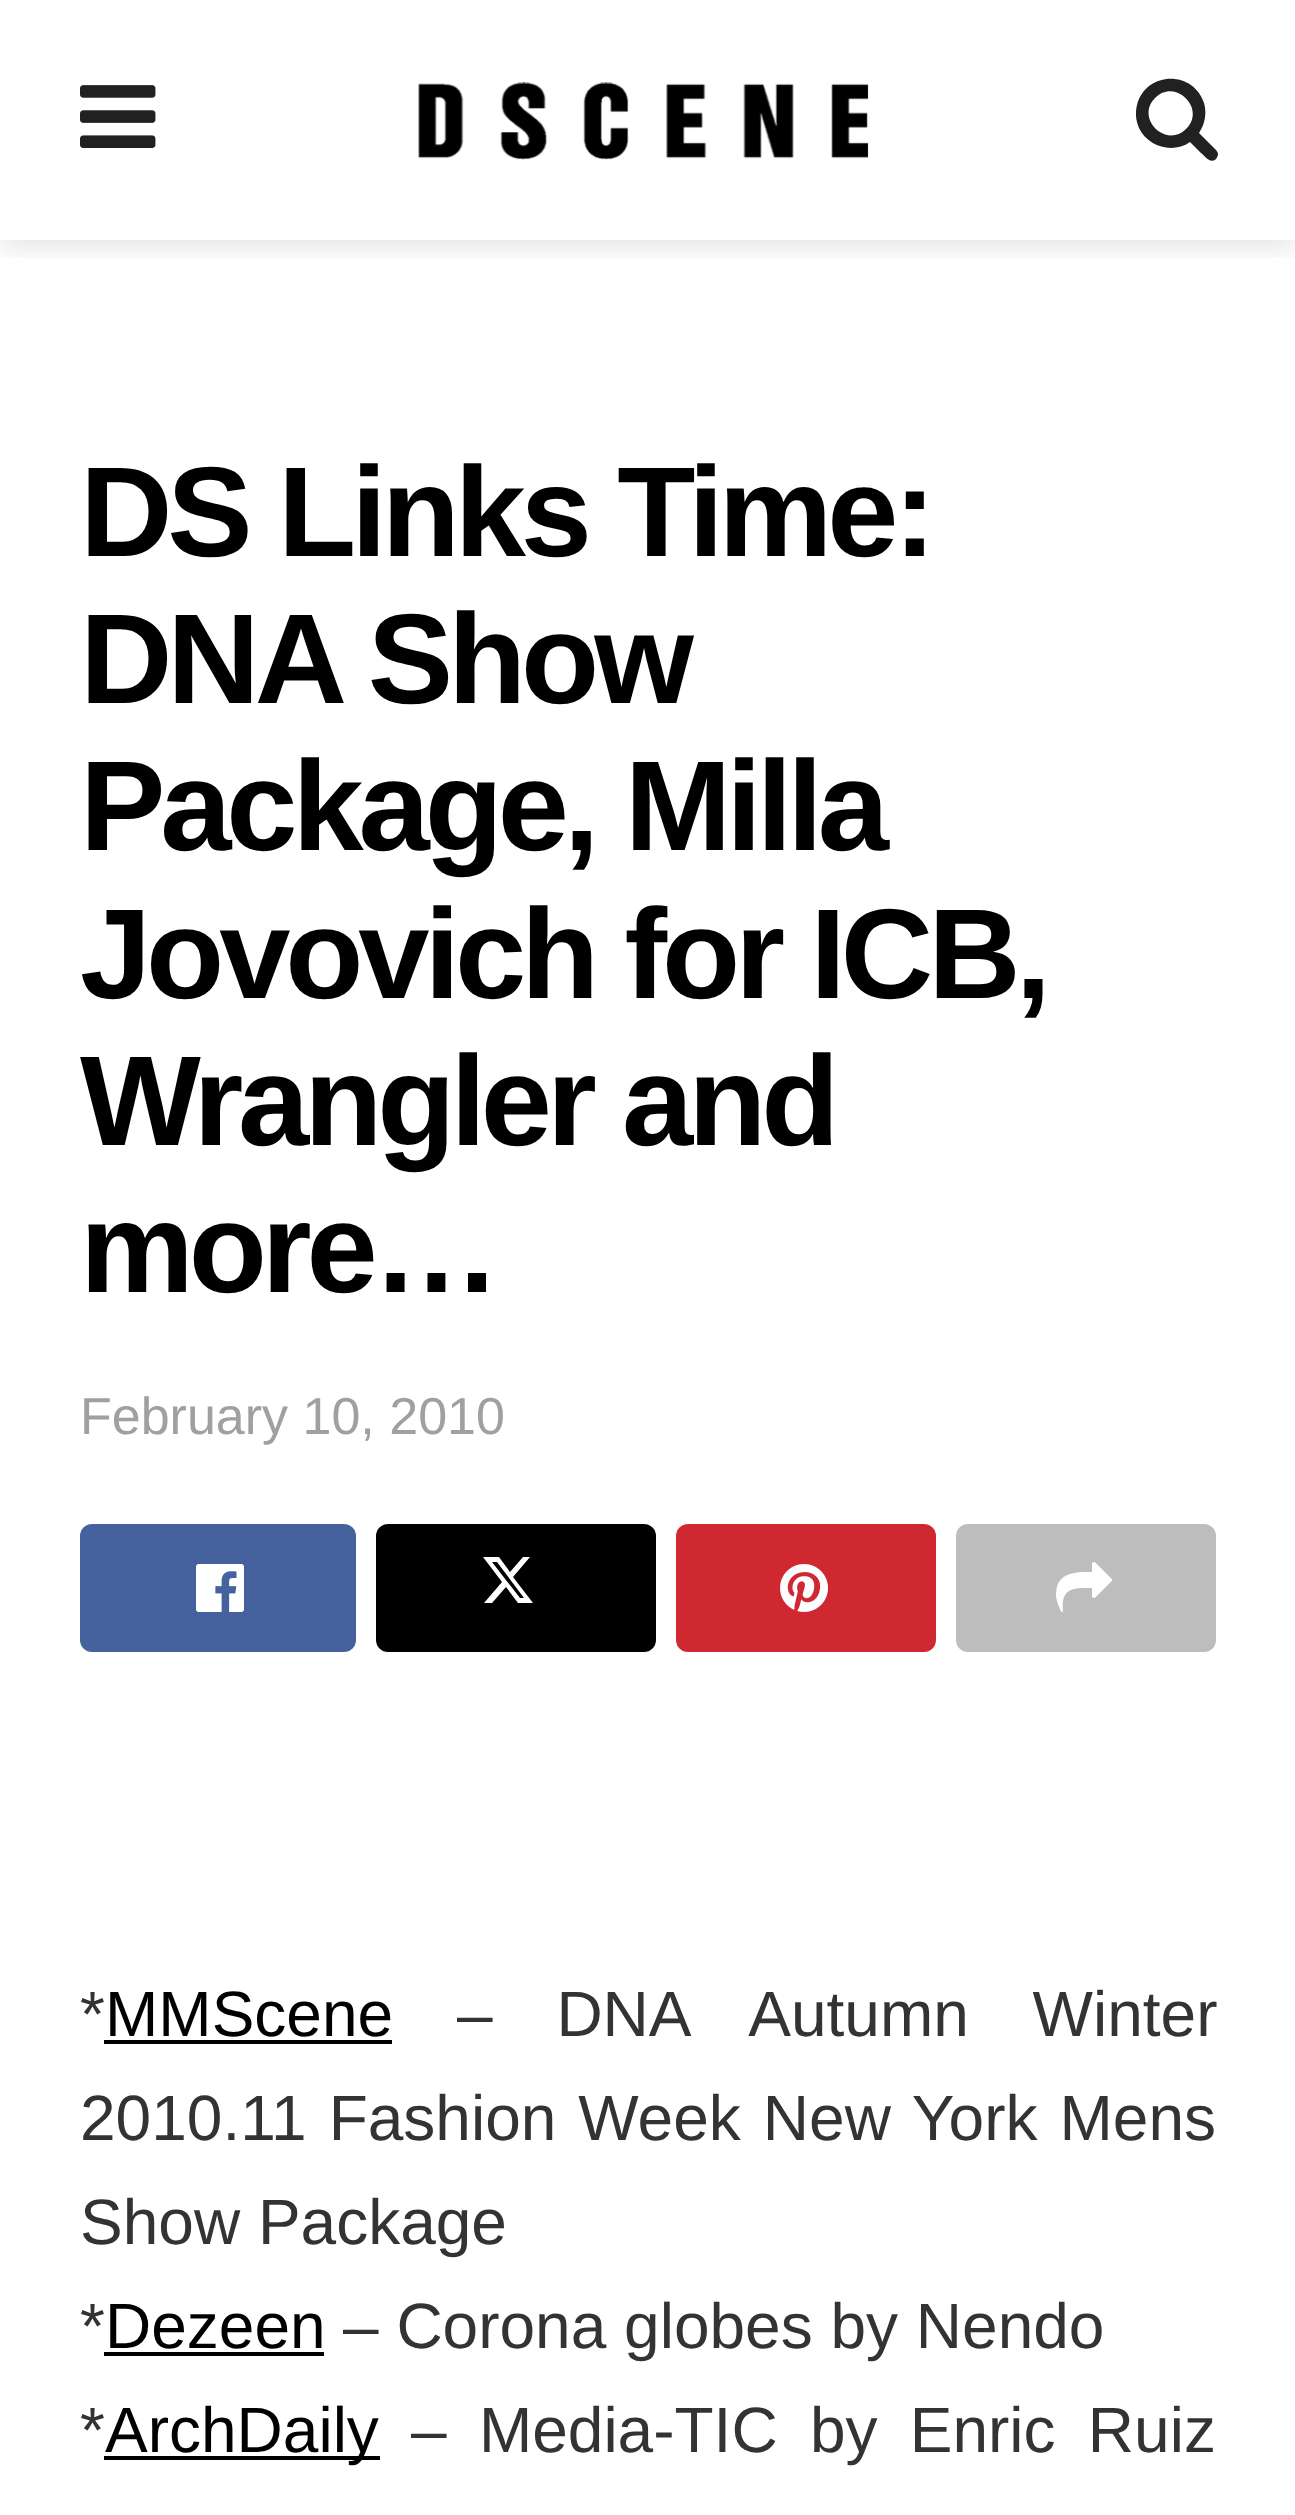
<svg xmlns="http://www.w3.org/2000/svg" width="1295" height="2515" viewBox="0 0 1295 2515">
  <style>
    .t1 { font: bold 128px Liberation Sans; letter-spacing: -5.1px; fill: #000; }
    .t2 { font: 52px Liberation Sans; fill: #a0a0a0; }
    .t3 { font: 64px Liberation Sans; fill: #333; }
    .t4 { font: 64px Liberation Sans; fill: #000; }
  </style>
  <defs>
    <clipPath id="clip1"><rect x="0" y="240" width="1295" height="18"/></clipPath>
  </defs>
  <rect width="100%" height="100%" fill="#fff"/>
  <g clip-path="url(#clip1)">
    <rect x="0" y="8" width="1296" height="240" fill="#0000001a" filter="blur(12px)"/>
  </g>
  <image x="80" y="85" width="76" height="63" href="images/1.png"/>
  <image x="418" y="81" width="451" height="79" href="images/2.png"/>
  <path d="M1186 129C1207 109 1175 77 1155 98C1135 118 1166 149 1186 129ZM1218 154C1218 156 1217 158 1215 160C1209 163 1205 156 1201 153L1190 142C1173 154 1148 147 1139 128C1136 121 1135 113 1137 105C1146 71 1193 70 1204 103C1207 113 1205 124 1199 133L1216 150C1217 151 1218 153 1218 154Z" fill="#212121"/>
  <text x="80" y="556" class="t1">DS Links Time:</text>
  <text x="80" y="703" class="t1">DNA Show</text>
  <text x="80" y="850" class="t1">Package, Milla</text>
  <text x="80" y="998" class="t1">Jovovich for ICB,</text>
  <text x="80" y="1145" class="t1">Wrangler and</text>
  <text x="80" y="1292" class="t1">more…</text>
  <text x="80" y="1434" class="t2">February 10, 2010</text>
  <rect x="80" y="1524" width="276" height="128" rx="12" fill="#45629f"/>
  <image x="196" y="1564" width="48" height="48" href="images/3.png"/>
  <rect x="376" y="1524" width="280" height="128" rx="12" fill="#000"/>
  <path d="M523 1557H530L513 1577L533 1603H518L506 1587L492 1603H484L502 1582L483 1557H499L510 1572ZM520 1598H524L497 1562H492Z" fill="#fff"/>
  <rect x="676" y="1524" width="260" height="128" rx="12" fill="#cf2830"/>
  <image x="780" y="1564" width="48" height="48" href="images/4.png"/>
  <rect x="956" y="1524" width="260" height="128" rx="12" fill="#bdbdbd"/>
  <image x="1056" y="1562" width="56" height="50" href="images/5.png"/>
  <text x="80" y="2036" class="t3">*</text>
  <text x="105" y="2036" class="t4">MMScene</text>
  <rect x="104" y="2040" width="288" height="4" fill="#000"/>
  <text x="457" y="2036" word-spacing="46" class="t3">– DNA Autumn Winter</text>
  <text x="80" y="2140" word-spacing="4.25" class="t3">2010.11 Fashion Week New York Mens</text>
  <text x="80" y="2244" class="t3">Show Package</text>
  <text x="80" y="2348" class="t3">*</text>
  <text x="105" y="2348" class="t4">Dezeen</text>
  <rect x="104" y="2352" width="220" height="4" fill="#000"/>
  <text x="343" y="2348" class="t3">– Corona globes by Nendo</text>
  <text x="80" y="2452" class="t3">*</text>
  <rect x="104" y="2456" width="276" height="4" fill="#000"/>
  <text x="105" y="2452" class="t4">ArchDaily</text>
  <text x="411" y="2452" word-spacing="14.5" class="t3">– Media-TIC by Enric Ruiz</text>
</svg>
